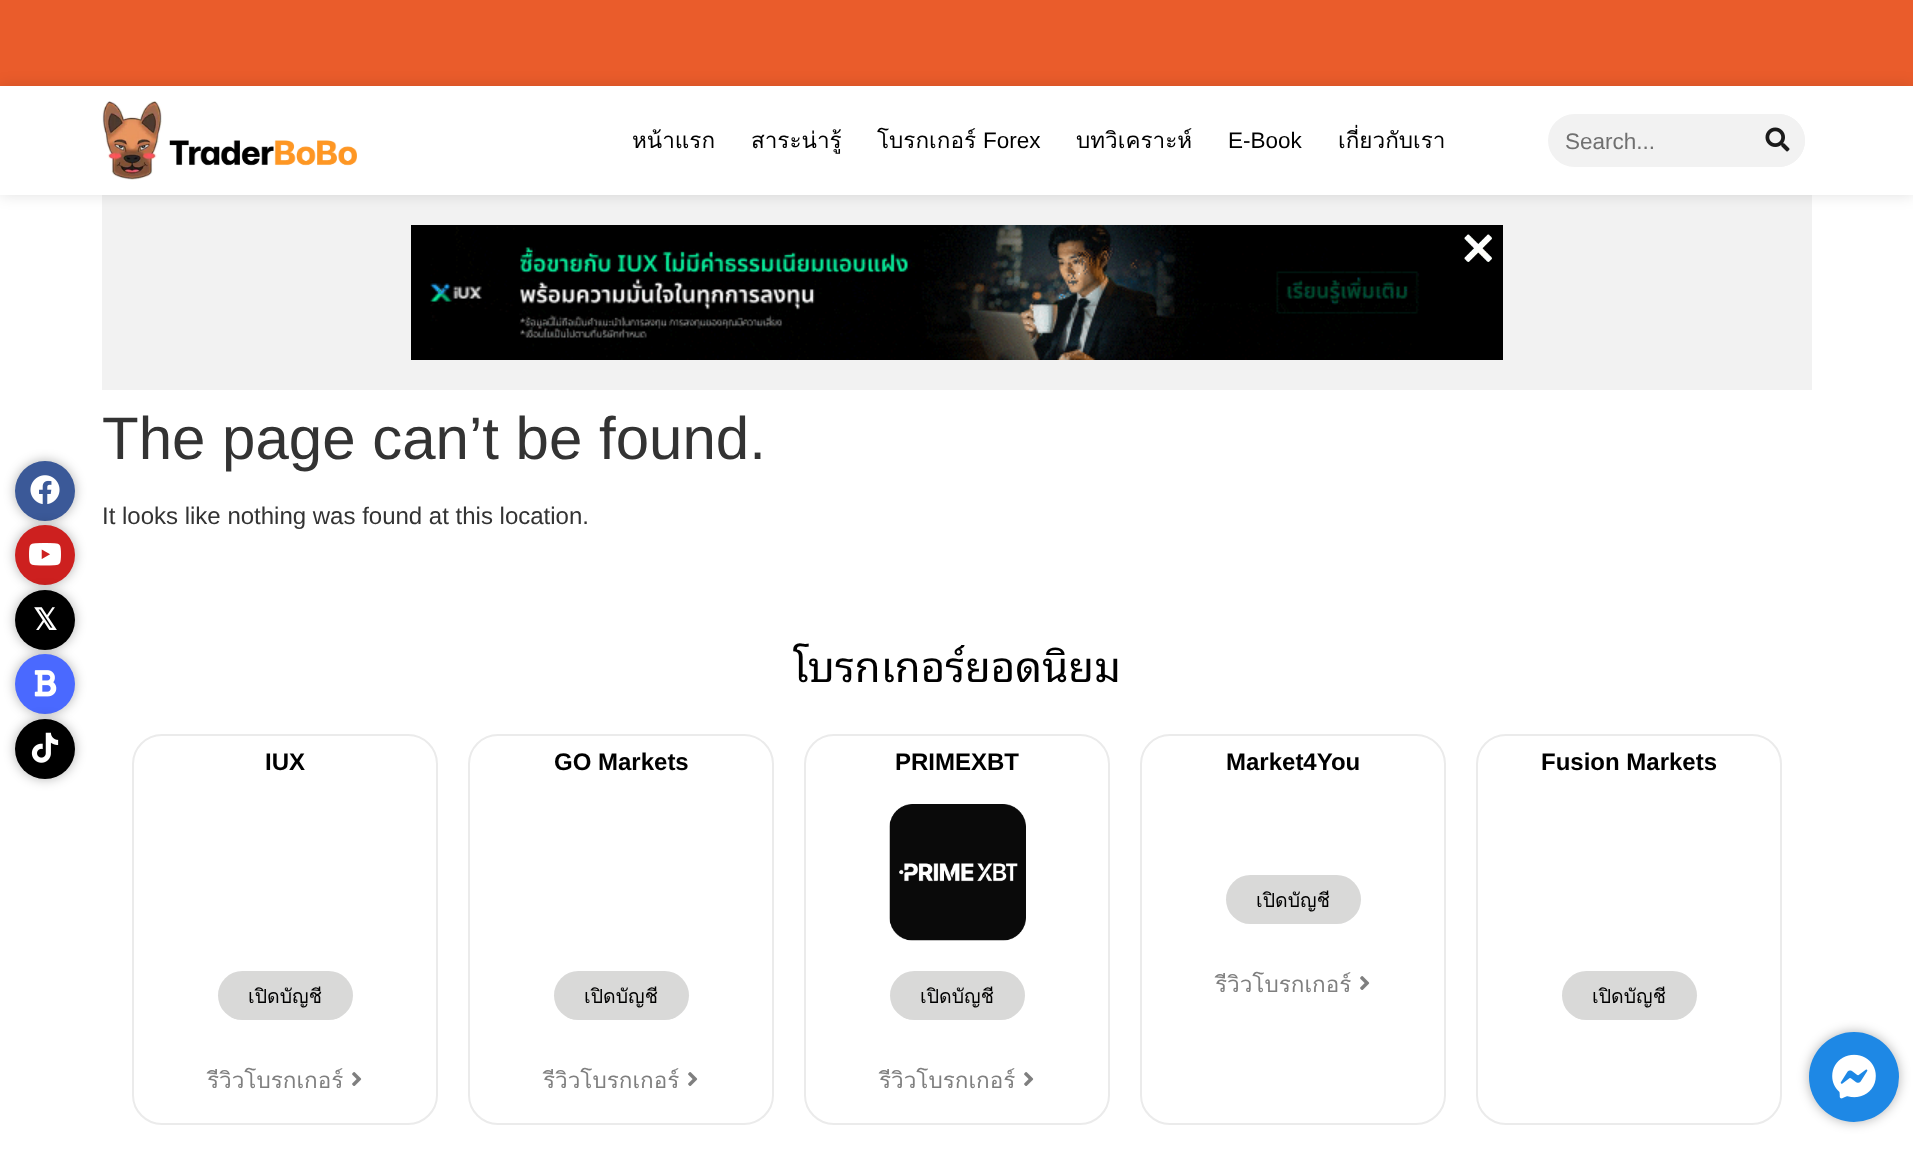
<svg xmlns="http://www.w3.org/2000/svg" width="1913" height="1151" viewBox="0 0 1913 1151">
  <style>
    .t1 { font: 22.5px Loma; fill: #000; }
    .t2 { font: 22.5px Liberation Sans; fill: #000; }
    .t3 { font: 22.5px Liberation Sans; fill: #707070; }
    .t4 { font: 60px Liberation Sans; fill: #333; }
    .t5 { font: 24px Liberation Sans; fill: #333; }
    .t6 { font: bold 30px DejaVu Sans; fill: #fff; }
    .t7 { font: 42px Noto Sans Thai Looped; fill: #000; }
    .t8 { font: bold 24px Liberation Sans; fill: #000; }
    .t9 { font: 19.5px Loma; fill: #000; }
    .t10 { font: 22.5px Loma; fill: #7f7f7f; }
  </style>
  <rect width="100%" height="100%" fill="#fff"/>
  <rect x="0" y="0" width="1913" height="86" fill="#ea5c2b"/>
  <rect x="102" y="195" width="1710" height="195" fill="#f2f2f2"/>
  <rect x="0" y="86" width="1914" height="109" fill="#0000001f" filter="blur(7.5px)"/>
  <rect x="0" y="86" width="1913" height="109" fill="#fff"/>
  <image x="102" y="101" width="255" height="79" href="images/1.png"/>
  <text x="632" y="148" class="t1">หน้าแรก</text>
  <text x="751" y="148" class="t1">สาระน่ารู้</text>
  <text x="877" y="148" class="t1">โบรกเกอร์</text>
  <text x="983" y="148" class="t2">Forex</text>
  <text x="1076" y="148" class="t1">บทวิเคราะห์</text>
  <text x="1228" y="148" class="t2">E-Book</text>
  <text x="1338" y="148" class="t1">เกี่ยวกับเรา</text>
  <rect x="1548" y="114" width="257" height="53" rx="26.5" fill="#f2f2f2"/>
  <text x="1565" y="149" class="t3">Search...</text>
  <path d="M1752 114H1778.5C1793 114 1805 126 1805 140.5C1805 155 1793 167 1778.5 167H1752Z" fill="#f2f2f2"/>
  <image x="1765" y="127" width="25" height="25" href="images/2.png"/>
  <image x="411" y="225" width="1092" height="135" href="images/3.png"/>
  <image x="1464" y="234" width="28" height="28" href="images/4.png"/>
  <text x="102" y="459" class="t4">The page can’t be found.</text>
  <text x="102" y="524" class="t5">It looks like nothing was found at this location.</text>
  <rect x="15" y="461" width="60" height="60" rx="30" fill="#0000004d" filter="blur(6px)"/>
  <circle cx="45" cy="491" r="30" fill="#3b5998"/>
  <image x="30" y="475" width="30" height="30" href="images/5.png"/>
  <rect x="15" y="525" width="60" height="60" rx="30" fill="#0000004d" filter="blur(6px)"/>
  <circle cx="45" cy="555" r="30" fill="#cd201f"/>
  <image x="29" y="543" width="32" height="23" href="images/6.png"/>
  <rect x="15" y="590" width="60" height="60" rx="30" fill="#0000004d" filter="blur(6px)"/>
  <circle cx="45" cy="620" r="30" fill="#000"/>
  <text x="33" y="630" class="t6">𝕏</text>
  <rect x="15" y="654" width="60" height="60" rx="30" fill="#0000004d" filter="blur(6px)"/>
  <circle cx="45" cy="684" r="30" fill="#4a69ff"/>
  <image x="34" y="670" width="23" height="27" href="images/7.png"/>
  <rect x="15" y="719" width="60" height="60" rx="30" fill="#0000004d" filter="blur(6px)"/>
  <circle cx="45" cy="749" r="30" fill="#000"/>
  <image x="31" y="732" width="28" height="31" href="images/8.png"/>
  <text x="793" y="682" class="t7">โบรกเกอร์ยอดนิยม</text>
  <rect x="133" y="735" width="304" height="389" rx="29" fill="none" stroke="#ebebeb" stroke-width="2"/>
  <text x="265" y="770" class="t8">IUX</text>
  <rect x="218" y="971" width="135" height="49" rx="24.5" fill="#d9d9d8"/>
  <text x="248" y="1003" class="t9">เปิดบัญชี</text>
  <text x="207" y="1088" class="t10">รีวิวโบรกเกอร์</text>
  <image x="352" y="1072" width="10" height="14" href="images/9.png"/>
  <rect x="469" y="735" width="304" height="389" rx="29" fill="none" stroke="#ebebeb" stroke-width="2"/>
  <text x="554" y="770" class="t8">GO Markets</text>
  <rect x="554" y="971" width="135" height="49" rx="24.5" fill="#d9d9d8"/>
  <text x="584" y="1003" class="t9">เปิดบัญชี</text>
  <text x="543" y="1088" class="t10">รีวิวโบรกเกอร์</text>
  <image x="688" y="1072" width="10" height="14" href="images/9.png"/>
  <rect x="805" y="735" width="304" height="389" rx="29" fill="none" stroke="#ebebeb" stroke-width="2"/>
  <text x="895" y="770" class="t8">PRIMEXBT</text>
  <image x="889" y="804" width="137" height="137" href="images/10.png"/>
  <rect x="890" y="971" width="135" height="49" rx="24.5" fill="#d9d9d8"/>
  <text x="920" y="1003" class="t9">เปิดบัญชี</text>
  <text x="879" y="1088" class="t10">รีวิวโบรกเกอร์</text>
  <image x="1024" y="1072" width="10" height="14" href="images/9.png"/>
  <rect x="1141" y="735" width="304" height="389" rx="29" fill="none" stroke="#ebebeb" stroke-width="2"/>
  <text x="1226" y="770" class="t8">Market4You</text>
  <rect x="1226" y="875" width="135" height="49" rx="24.5" fill="#d9d9d8"/>
  <text x="1256" y="907" class="t9">เปิดบัญชี</text>
  <text x="1215" y="992" class="t10">รีวิวโบรกเกอร์</text>
  <image x="1360" y="976" width="10" height="14" href="images/9.png"/>
  <rect x="1477" y="735" width="304" height="389" rx="29" fill="none" stroke="#ebebeb" stroke-width="2"/>
  <text x="1541" y="770" class="t8">Fusion Markets</text>
  <rect x="1562" y="971" width="135" height="49" rx="24.5" fill="#d9d9d8"/>
  <text x="1592" y="1003" class="t9">เปิดบัญชี</text>
  <rect x="1809" y="1032" width="90" height="90" rx="45" fill="#0000004d" filter="blur(6px)"/>
  <circle cx="1854" cy="1077" r="45" fill="#1e88e5"/>
  <image x="1832" y="1054" width="44" height="45" href="images/11.png"/>
</svg>
